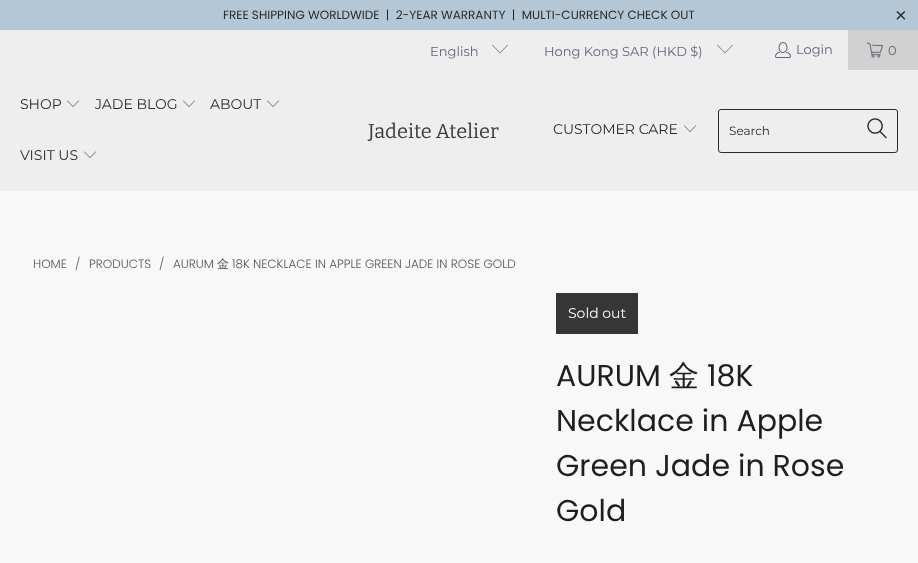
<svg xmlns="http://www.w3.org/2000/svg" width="918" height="563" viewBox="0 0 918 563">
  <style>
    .t1 { font: 12px Poppins; fill: #2b2a2a; }
    .t2 { font: 20px Liberation Sans; fill: #2b2a2a; }
    .t3 { font: 13px Montserrat; fill: #62677b; }
    .t4 { font: 14px Montserrat; fill: #2b2a2a; }
    .t5 { font: 20px Bitter; fill: #3b3b3b; }
    .t6 { font: 12px Montserrat; fill: #2b2a2a; }
    .t7 { font: 300 12px Poppins; fill: #545454; }
    .t8 { font: 500 12px WenQuanYi Zen Hei; fill: #545454; }
    .t9 { font: 14px Montserrat; fill: #fff; }
    .t10 { font: 30px Poppins; fill: #1f1f1f; }
    .t11 { font: 500 30px WenQuanYi Zen Hei; fill: #1f1f1f; }
  </style>
  <rect width="100%" height="100%" fill="#f8f8f8"/>
  <rect x="0" y="0" width="918" height="30" fill="#b4c7d6"/>
  <text x="223" y="19" class="t1" xml:space="preserve">FREE SHIPPING WORLDWIDE  |  2-YEAR WARRANTY  |  MULTI-CURRENCY CHECK OUT</text>
  <text x="895" y="22" class="t2">×</text>
  <rect x="0" y="30" width="848" height="40" fill="#eee"/>
  <text x="430" y="56" class="t3">English</text>
  <image x="492" y="44" width="16" height="10" href="images/1.png"/>
  <text x="544" y="56" class="t3">Hong Kong SAR (HKD $)</text>
  <image x="717" y="44" width="16" height="10" href="images/1.png"/>
  <image x="775" y="42" width="16" height="16" href="images/2.png"/>
  <text x="796" y="54" class="t3">Login</text>
  <rect x="848" y="30" width="70" height="40" fill="#d1d1d1"/>
  <image x="867" y="42" width="16" height="16" href="images/3.png"/>
  <text x="888" y="55" class="t3">0</text>
  <rect x="0" y="70" width="918" height="121" fill="#eee"/>
  <text x="20" y="109" class="t4">SHOP</text>
  <image x="67" y="100" width="12" height="7" href="images/4.png"/>
  <text x="95" y="109" class="t4">JADE BLOG</text>
  <image x="183" y="100" width="12" height="7" href="images/4.png"/>
  <text x="210" y="109" class="t4">ABOUT</text>
  <image x="267" y="100" width="12" height="7" href="images/4.png"/>
  <text x="20" y="160" class="t4">VISIT US</text>
  <image x="84" y="151" width="12" height="7" href="images/4.png"/>
  <text x="368" y="138" class="t5">Jadeite Atelier</text>
  <text x="553" y="134" class="t4">CUSTOMER CARE</text>
  <image x="684" y="125" width="12" height="7" href="images/4.png"/>
  <rect x="718.5" y="109.5" width="179" height="43" rx="2.5" fill="none" stroke="#2b2a2a"/>
  <text x="729" y="135" class="t6">Search</text>
  <image x="867" y="118" width="20" height="21" href="images/5.png"/>
  <text x="33" y="268" class="t7">HOME</text>
  <text x="75" y="268" class="t7">/</text>
  <text x="89" y="268" class="t7">PRODUCTS</text>
  <text x="159" y="268" class="t7">/</text>
  <text x="173" y="268" class="t7">AURUM</text>
  <text x="217" y="268" class="t8">金</text>
  <text x="232" y="268" class="t7">18K NECKLACE IN APPLE GREEN JADE IN ROSE GOLD</text>
  <rect x="556" y="293" width="82" height="41" fill="#363636"/>
  <text x="568" y="318" class="t9">Sold out</text>
  <text x="556" y="386" class="t10">AURUM</text>
  <text x="669" y="386" class="t11">金</text>
  <text x="707" y="386" class="t10">18K</text>
  <text x="556" y="431" class="t10">Necklace in Apple</text>
  <text x="556" y="476" class="t10">Green Jade in Rose</text>
  <text x="556" y="521" class="t10">Gold</text>
</svg>
